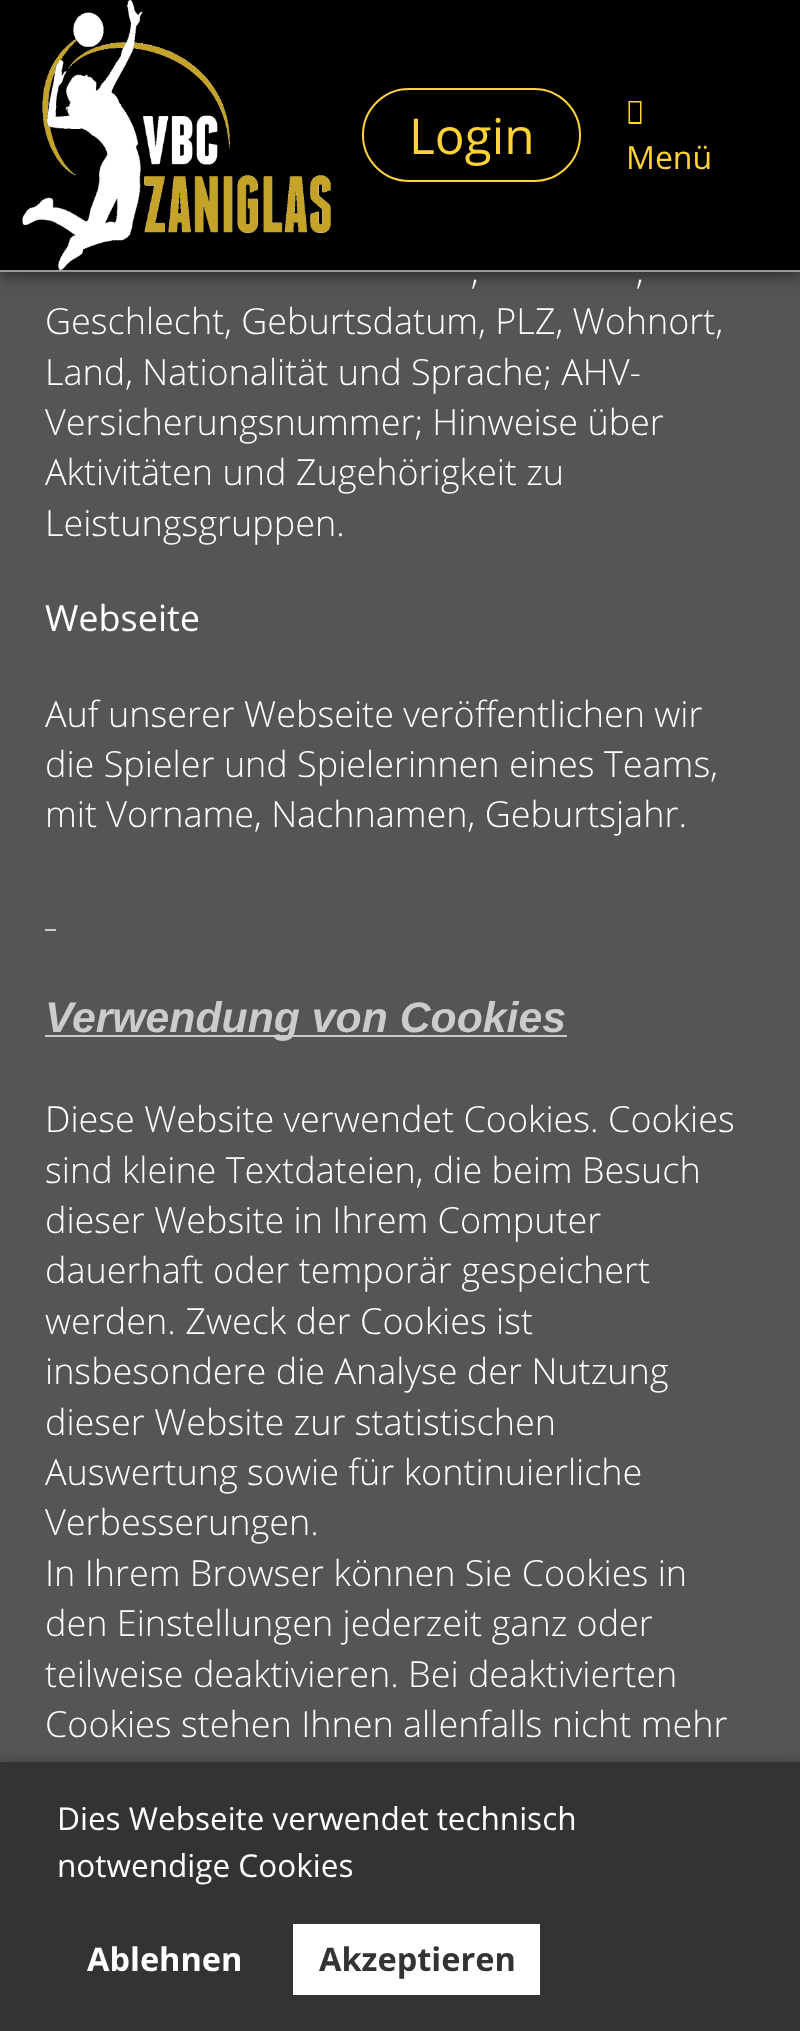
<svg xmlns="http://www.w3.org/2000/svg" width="800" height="2031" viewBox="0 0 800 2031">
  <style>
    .t1 { font: 49.5px Open Sans; fill: #ffd337; }
    .t2 { font: 32px Open Sans; fill: #ffd337; }
    .t3 { font: 300 36px Open Sans; fill: #fff; }
    .t4 { font: 36px Open Sans; fill: #fff; }
    .t5 { font: italic bold 42.75px Liberation Sans; fill: #ccc; }
    .t6 { font: 31.5px Open Sans; fill: #fff; }
    .t7 { font: bold 32.5px Open Sans; fill: #fff; }
    .t8 { font: bold 32.5px Open Sans; fill: #333; }
  </style>
  <rect width="100%" height="100%" fill="#555"/>
  <rect x="0" y="2" width="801" height="273" fill="#0000001f" filter="blur(11px)"/>
  <rect x="0" y="9" width="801" height="272" fill="#00000024" filter="blur(5.5px)"/>
  <rect x="2" y="7" width="797" height="268" fill="#00000033" filter="blur(4.5px)"/>
  <rect x="0" y="0" width="800" height="270" fill="#000"/>
  <rect x="0" y="270" width="800" height="2" fill="#999"/>
  <image x="22" y="0" width="309" height="270" href="images/1.png"/>
  <rect x="363" y="89" width="217" height="92" rx="46" fill="none" stroke="#ffd337" stroke-width="2"/>
  <text x="409" y="154" class="t1">Login</text>
  <path d="M628.5 124V101H641.5V124ZM630 122H640V102.5H630Z" fill="#ffd337"/>
  <text x="626" y="169" class="t2">Menü</text>
  <text x="471" y="284" class="t3">,</text>
  <text x="636" y="284" class="t3">,</text>
  <text x="45" y="334" class="t3">Geschlecht, Geburtsdatum, PLZ, Wohnort,</text>
  <text x="45" y="385" class="t3">Land, Nationalität und Sprache; AHV-</text>
  <text x="45" y="435" class="t3">Versicherungsnummer; Hinweise über</text>
  <text x="45" y="485" class="t3">Aktivitäten und Zugehörigkeit zu</text>
  <text x="45" y="536" class="t3">Leistungsgruppen.</text>
  <text x="45" y="631" class="t4">Webseite</text>
  <text x="45" y="727" class="t3">Auf unserer Webseite veröffentlichen wir</text>
  <text x="45" y="777" class="t3">die Spieler und Spielerinnen eines Teams,</text>
  <text x="45" y="827" class="t3">mit Vorname, Nachnamen, Geburtsjahr.</text>
  <rect x="45" y="929" width="11" height="2" fill="#ccc"/>
  <rect x="45" y="1035" width="522" height="2" fill="#ccc"/>
  <text x="45" y="1032" class="t5">Verwendung von Cookies</text>
  <text x="45" y="1132" class="t3">Diese Website verwendet Cookies. Cookies</text>
  <text x="45" y="1183" class="t3">sind kleine Textdateien, die beim Besuch</text>
  <text x="45" y="1233" class="t3">dieser Website in Ihrem Computer</text>
  <text x="45" y="1283" class="t3">dauerhaft oder temporär gespeichert</text>
  <text x="45" y="1334" class="t3">werden. Zweck der Cookies ist</text>
  <text x="45" y="1384" class="t3">insbesondere die Analyse der Nutzung</text>
  <text x="45" y="1435" class="t3">dieser Website zur statistischen</text>
  <text x="45" y="1485" class="t3">Auswertung sowie für kontinuierliche</text>
  <text x="45" y="1535" class="t3">Verbesserungen.</text>
  <text x="45" y="1586" class="t3">In Ihrem Browser können Sie Cookies in</text>
  <text x="45" y="1636" class="t3">den Einstellungen jederzeit ganz oder</text>
  <text x="45" y="1687" class="t3">teilweise deaktivieren. Bei deaktivierten</text>
  <text x="45" y="1737" class="t3">Cookies stehen Ihnen allenfalls nicht mehr</text>
  <rect x="0" y="1762" width="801" height="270" fill="#0000004d" filter="blur(5.5px)"/>
  <rect x="0" y="1762" width="800" height="269" fill="#333"/>
  <text x="57" y="1830" class="t6">Dies Webseite verwendet technisch</text>
  <text x="57" y="1877" class="t6">notwendige Cookies</text>
  <text x="87" y="1971" class="t7">Ablehnen</text>
  <rect x="293" y="1924" width="247" height="71" fill="#fff"/>
  <text x="319" y="1971" class="t8">Akzeptieren</text>
</svg>
